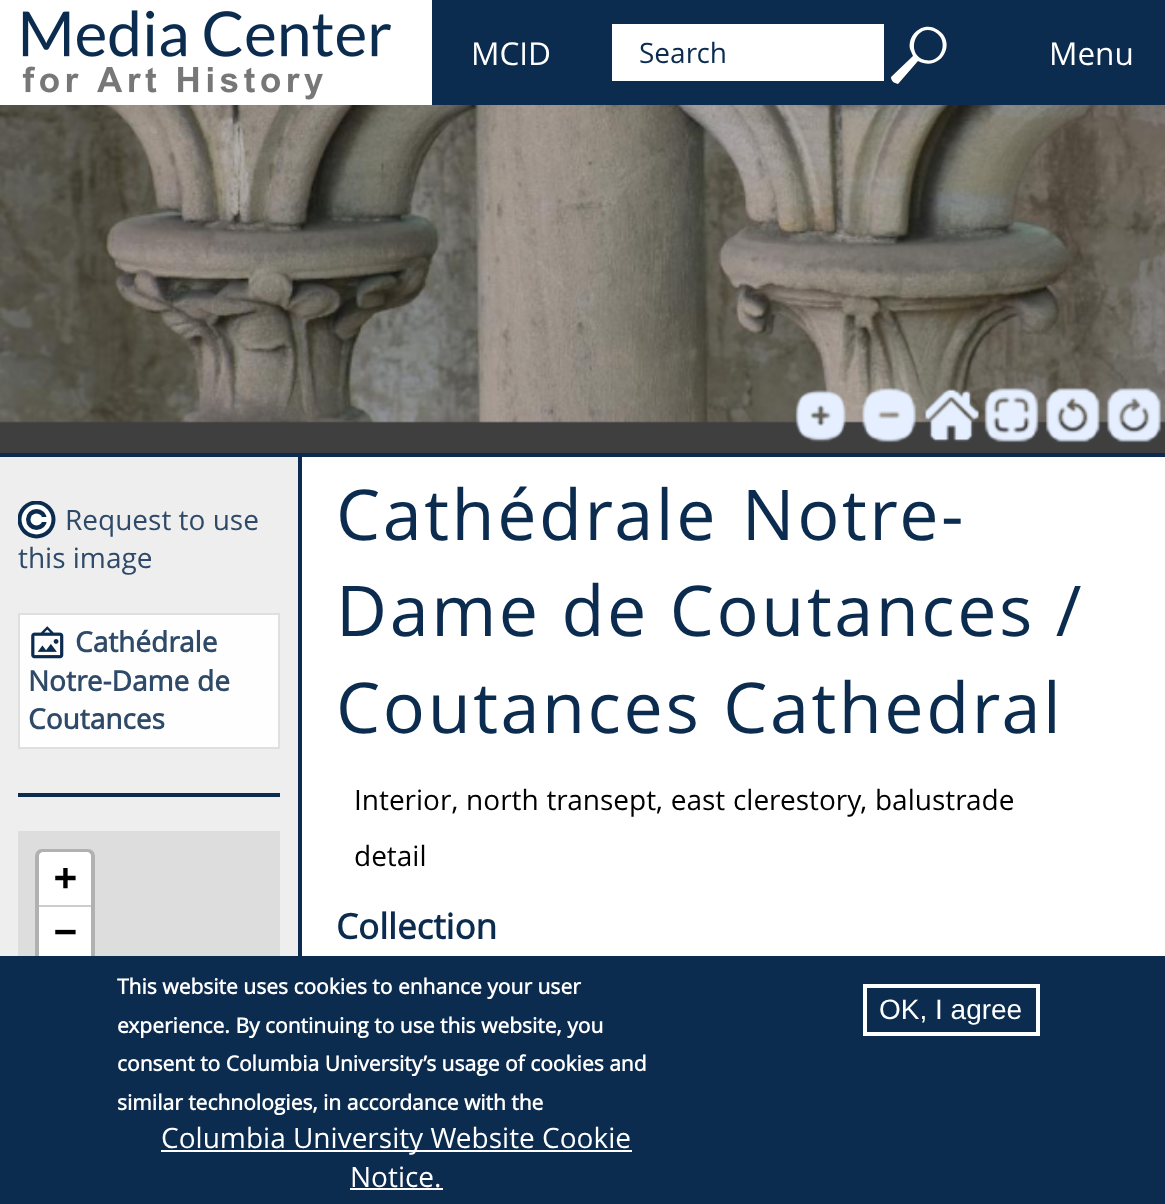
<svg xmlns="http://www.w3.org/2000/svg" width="1165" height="1204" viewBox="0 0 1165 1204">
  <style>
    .t1 { font: 31.5px Open Sans; fill: #fff; }
    .t2 { font: 28px Open Sans; fill: #0b2c4f; }
    .t3 { font: 28px Open Sans; fill: #2e4a68; }
    .t4 { font: bold 28px Open Sans; fill: #2e4a68; }
    .t5 { font: bold 38px DejaVu Sans Mono; fill: #000; }
    .t6 { font: 70px Open Sans; letter-spacing: 2.6px; fill: #0b2c4f; }
    .t7 { font: 28px Open Sans; fill: #000; }
    .t8 { font: bold 35px Open Sans; fill: #0b2c4f; }
    .t9 { font: bold 21px Open Sans; fill: #fff; }
    .t10 { font: 28px Open Sans; fill: #fff; }
    .t11 { font: 28px Liberation Sans; fill: #fff; }
  </style>
  <defs>
    <clipPath id="clip1"><rect x="18" y="501" width="38" height="38"/></clipPath>
  </defs>
  <rect width="100%" height="100%" fill="#fff"/>
  <rect x="432" y="0" width="733" height="105" fill="#0b2c4f"/>
  <image x="22" y="10" width="369" height="90" href="images/1.png"/>
  <text x="471" y="65" class="t1">MCID</text>
  <rect x="612" y="24" width="272" height="57" fill="#fff"/>
  <text x="639" y="63" class="t2">Search</text>
  <path d="M925 27C915 29 908 39 910 49L913 56L891 77C891 81 894 83 898 84L918 61C940 73 958 43 938 30C934 27 929 26 925 27ZM933 31C950 38 943 64 925 60C905 55 915 24 933 31Z" fill="#fff"/>
  <text x="1049" y="65" class="t1">Menu</text>
  <rect x="0" y="421" width="1165" height="32" fill="#3f3f3f"/>
  <image x="0" y="105" width="1165" height="318" href="images/2.png"/>
  <image x="795" y="390" width="51" height="52" href="images/3.png"/>
  <image x="796" y="390" width="50" height="52" href="images/4.png"/>
  <image x="861" y="387" width="56" height="56" href="images/5.png"/>
  <image x="862" y="388" width="54" height="54" href="images/6.png"/>
  <image x="925" y="388" width="54" height="54" href="images/7.png"/>
  <image x="925" y="389" width="54" height="52" href="images/8.png"/>
  <image x="983" y="387" width="57" height="56" href="images/9.png"/>
  <image x="984" y="388" width="55" height="54" href="images/10.png"/>
  <image x="1045" y="387" width="56" height="56" href="images/11.png"/>
  <image x="1046" y="388" width="54" height="54" href="images/12.png"/>
  <image x="1106" y="387" width="56" height="56" href="images/13.png"/>
  <image x="1107" y="388" width="54" height="54" href="images/14.png"/>
  <rect x="0" y="453" width="1165" height="4" fill="#0b2c4f"/>
  <rect x="0" y="457" width="298" height="499" fill="#eee"/>
  <rect x="298" y="457" width="4" height="499" fill="#0b2c4f"/>
  <g clip-path="url(#clip1)">
    <circle cx="36.5" cy="519.5" r="19" fill="#0b2c4f"/>
  </g>
  <circle cx="36.5" cy="519.5" r="15" fill="#fff"/>
  <circle cx="36.5" cy="519.5" r="10.5" fill="#0b2c4f"/>
  <circle cx="36.5" cy="519.5" r="6" fill="#fff"/>
  <rect x="40" y="517" width="9" height="5" fill="#fff"/>
  <text x="65" y="530" class="t3">Request to use</text>
  <text x="18" y="568" class="t3">this image</text>
  <rect x="19" y="614" width="260" height="134" fill="#fefefe" stroke="#dfdfdf" stroke-width="2"/>
  <image x="31" y="626" width="33" height="33" href="images/15.png"/>
  <text x="75" y="652" class="t4">Cathédrale</text>
  <text x="28" y="691" word-spacing="0.5" class="t4">Notre-Dame de</text>
  <text x="28" y="729" class="t4">Coutances</text>
  <rect x="18" y="793" width="262" height="4" fill="#0b2c4f"/>
  <rect x="18" y="831" width="262" height="125" fill="#ddd"/>
  <rect x="37" y="851" width="56" height="110" rx="5" fill="none" stroke="#b1b1b1" stroke-width="4"/>
  <path d="M43 852H87C89 852 91 854 91 856V907H39V856C39 854 41 852 43 852Z" fill="#fff"/>
  <rect x="39" y="905" width="52" height="2" fill="#ccc"/>
  <text x="54" y="890" class="t5">+</text>
  <rect x="39" y="907" width="52" height="49" fill="#fff"/>
  <text x="54" y="944" class="t5">−</text>
  <text x="336" y="540" word-spacing="3" class="t6">Cathédrale Notre-</text>
  <text x="336" y="636" class="t6">Dame de Coutances /</text>
  <text x="336" y="733" word-spacing="1" class="t6">Coutances Cathedral</text>
  <text x="354" y="810" word-spacing="0.5" class="t7">Interior, north transept, east clerestory, balustrade</text>
  <text x="354" y="866" class="t7">detail</text>
  <text x="336" y="939" class="t8">Collection</text>
  <rect x="0" y="956" width="1165" height="248" fill="#0b2c4f"/>
  <text x="117" y="994" class="t9">This website uses cookies to enhance your user</text>
  <text x="117" y="1033" class="t9">experience. By continuing to use this website, you</text>
  <text x="117" y="1071" class="t9">consent to Columbia University’s usage of cookies and</text>
  <text x="117" y="1110" class="t9">similar technologies, in accordance with the</text>
  <rect x="161" y="1150" width="471" height="2" fill="#fff"/>
  <text x="161" y="1148" class="t10">Columbia University Website Cookie</text>
  <text x="350" y="1187" class="t10">Notice.</text>
  <rect x="350" y="1188" width="93" height="2" fill="#fff"/>
  <rect x="865" y="986" width="173" height="48" fill="none" stroke="#fff" stroke-width="4"/>
  <text x="879" y="1019" class="t11">OK, I agree</text>
</svg>
